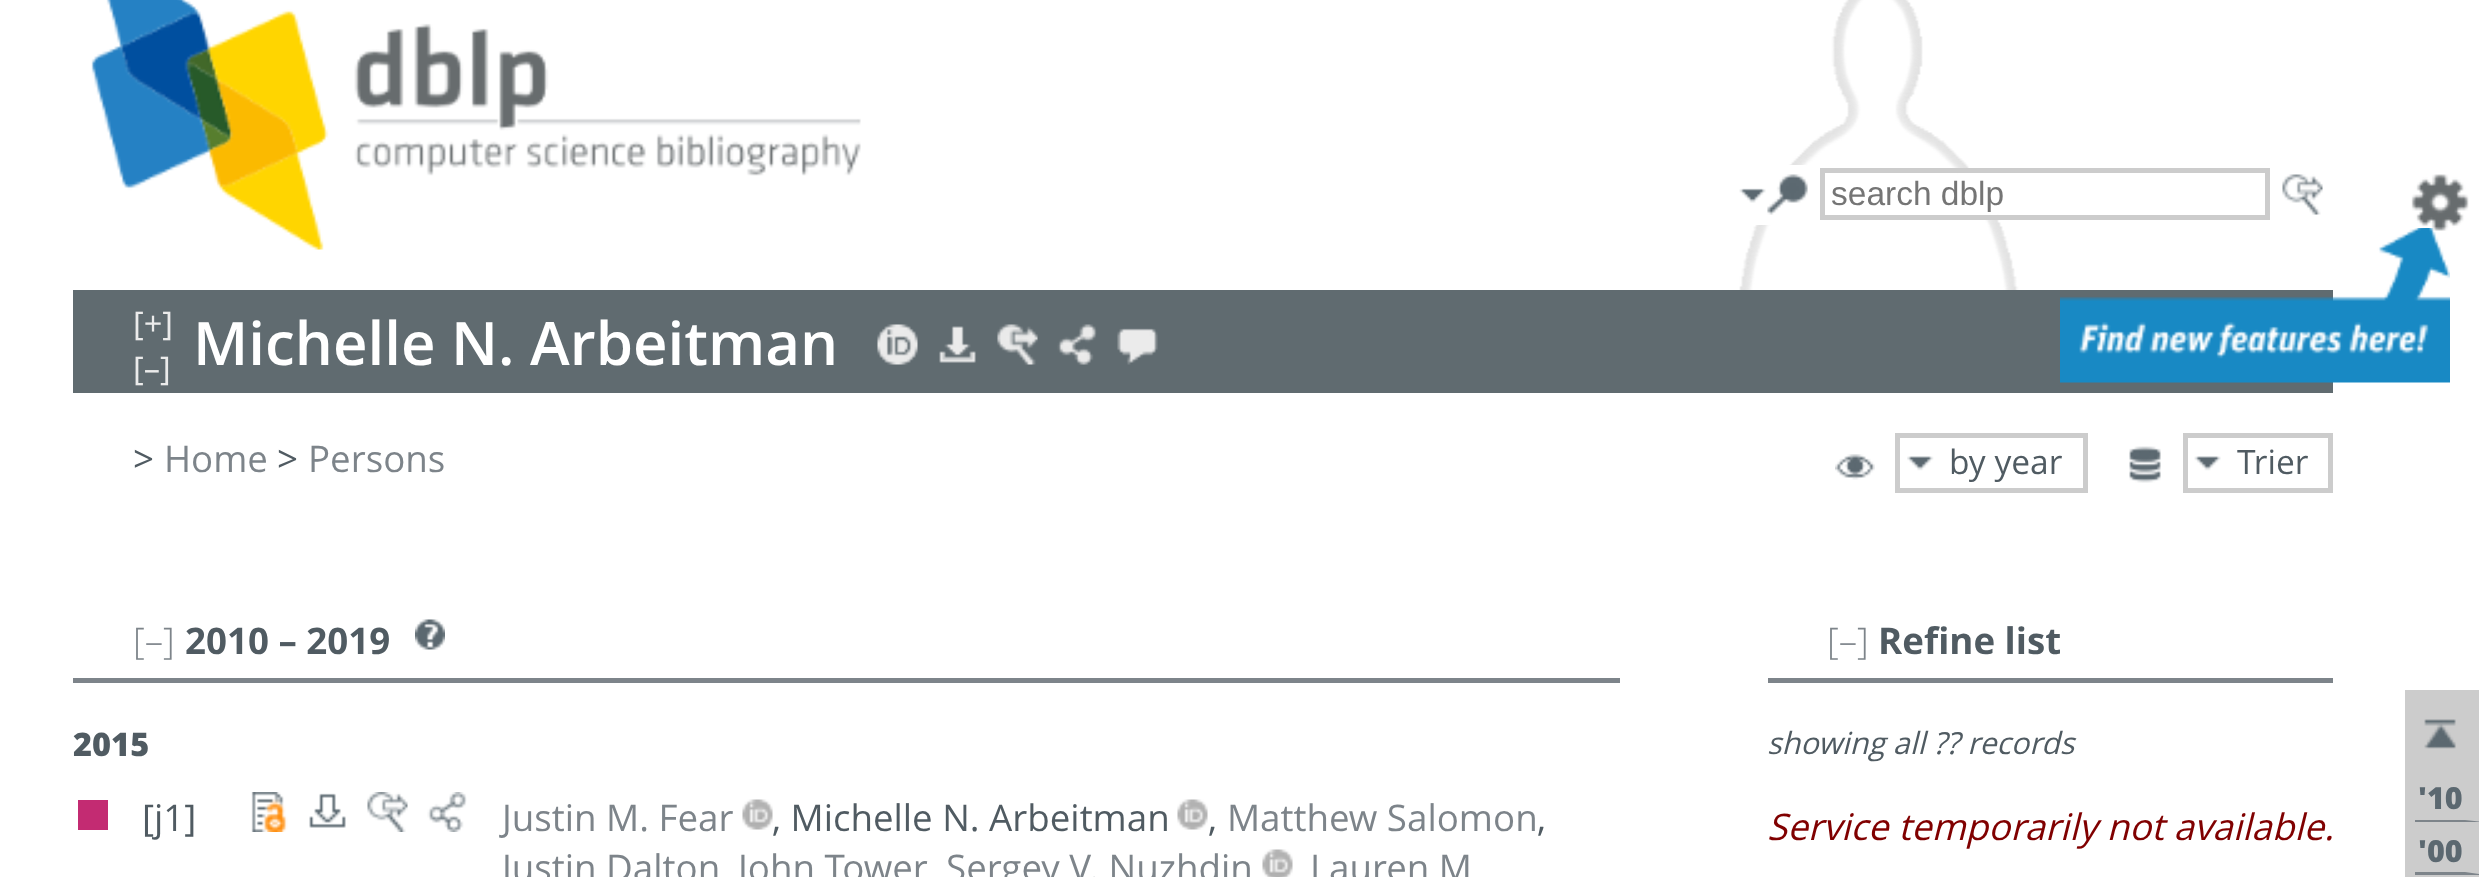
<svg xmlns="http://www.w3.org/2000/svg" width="2479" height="877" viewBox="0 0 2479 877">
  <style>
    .t1 { font: 33.5px Liberation Sans; fill: #757575; }
    .t2 { font: 32.5px Open Sans; fill: #ebebeb; }
    .t3 { font: 600 60px Open Sans; fill: #fff; }
    .t4 { font: 36.7px Open Sans; fill: #505b62; }
    .t5 { font: 36.7px Open Sans; fill: #7d848a; }
    .t6 { font: 33.5px Open Sans; fill: #505b62; }
    .t7 { font: 300 36.7px Open Sans; fill: #7d848a; }
    .t8 { font: bold 36.7px Open Sans; fill: #505b62; }
    .t9 { font: 800 32.5px Open Sans; fill: #505b62; }
    .t10 { font: italic 30.5px Open Sans; fill: #505b62; }
    .t11 { font: italic 36.7px Open Sans; fill: #800000; }
    .t12 { font: 800 30.5px Open Sans; fill: #5b6870; }
  </style>
  <rect width="100%" height="100%" fill="#fff"/>
  <image x="1739" y="0" width="280" height="290" href="images/1.png"/>
  <image x="91" y="0" width="770" height="250" href="images/2.png"/>
  <rect x="1755" y="165" width="51" height="60" fill="#fff"/>
  <image x="1739" y="188" width="27" height="15" href="images/3.png"/>
  <image x="1767" y="174" width="41" height="41" href="images/4.png"/>
  <rect x="1958" y="173" width="39" height="42" fill="#fff"/>
  <rect x="1822.5" y="170.5" width="445" height="47" fill="none" stroke="#ccc" stroke-width="5"/>
  <text x="1831" y="205" class="t1">search dblp</text>
  <image x="2282" y="174" width="41" height="41" href="images/5.png"/>
  <rect x="73" y="290" width="2260" height="103" fill="#606b70"/>
  <image x="2060" y="228" width="390" height="155" href="images/12.png"/>
  <image x="2411" y="174" width="58" height="57" href="images/6.png"/>
  <text x="133" y="335" class="t2">[+]</text>
  <text x="133" y="380" class="t2">[–]</text>
  <text x="193" y="365" class="t3">Michelle N. Arbeitman</text>
  <image x="877" y="324" width="41" height="41" href="images/7.png"/>
  <image x="939" y="326" width="37" height="37" href="images/8.png"/>
  <image x="997" y="324" width="41" height="41" href="images/9.png"/>
  <image x="1057" y="324" width="40" height="41" href="images/10.png"/>
  <image x="1117" y="328" width="41" height="37" href="images/11.png"/>
  <text x="133" y="472" class="t4">&gt;</text>
  <text x="164" y="472" class="t5">Home</text>
  <text x="277" y="472" class="t4">&gt;</text>
  <text x="308" y="472" class="t5">Persons</text>
  <image x="1835" y="454" width="40" height="26" href="images/13.png"/>
  <image x="1907" y="456" width="27" height="15" href="images/14.png"/>
  <rect x="1897.5" y="435.5" width="188" height="55" fill="none" stroke="#ccc" stroke-width="5"/>
  <text x="1949" y="474" class="t6">by year</text>
  <image x="2129" y="446" width="32" height="37" href="images/15.png"/>
  <image x="2194" y="456" width="27" height="15" href="images/16.png"/>
  <rect x="2185.5" y="435.5" width="145" height="55" fill="none" stroke="#ccc" stroke-width="5"/>
  <text x="2237" y="474" class="t6">Trier</text>
  <rect x="73" y="678" width="1547" height="5" fill="#7d848a"/>
  <text x="133" y="654" class="t7">[–]</text>
  <text x="185" y="654" class="t8">2010 – 2019</text>
  <image x="415" y="619" width="30" height="31" href="images/17.png"/>
  <text x="73" y="756" class="t9">2015</text>
  <rect x="78" y="800" width="30" height="30" fill="#c32b72"/>
  <text x="142" y="831" class="t4">[j1]</text>
  <image x="251" y="792" width="37" height="40" href="images/18.png"/>
  <image x="309" y="793" width="37" height="35" href="images/19.png"/>
  <image x="367" y="792" width="41" height="40" href="images/20.png"/>
  <image x="427" y="792" width="40" height="40" href="images/21.png"/>
  <text x="502" y="831" class="t5">Justin M. Fear</text>
  <image x="742" y="799" width="31" height="31" href="images/22.png"/>
  <text x="772" y="831" class="t4">, Michelle N. Arbeitman</text>
  <image x="1177" y="799" width="31" height="31" href="images/22.png"/>
  <text x="1208" y="831" class="t4">,</text>
  <text x="1227" y="831" class="t5">Matthew Salomon</text>
  <text x="1537" y="831" class="t4">,</text>
  <text x="502" y="881" class="t5">Justin Dalton</text>
  <text x="738" y="881" class="t5">John Tower</text>
  <text x="946" y="881" class="t5">Sergey V. Nuzhdin</text>
  <image x="1262" y="849" width="31" height="28" href="images/23.png"/>
  <text x="1310" y="881" class="t5">Lauren M</text>
  <rect x="1768" y="678" width="565" height="5" fill="#7d848a"/>
  <text x="1827" y="654" class="t7">[–]</text>
  <text x="1878" y="654" class="t8">Refine list</text>
  <text x="1767" y="754" class="t10">showing all ?? records</text>
  <text x="1767" y="840" class="t11">Service temporarily not available.</text>
  <rect x="2405" y="690" width="74" height="187" fill="#ccc"/>
  <image x="2424" y="719" width="32" height="30" href="images/24.png"/>
  <path d="M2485 822H2415V820H2465Z" fill="#7d848a"/>
  <text x="2418" y="809" class="t12">'10</text>
  <path d="M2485 875H2415V872H2465Z" fill="#7d848a"/>
  <text x="2418" y="862" class="t12">'00</text>
</svg>
